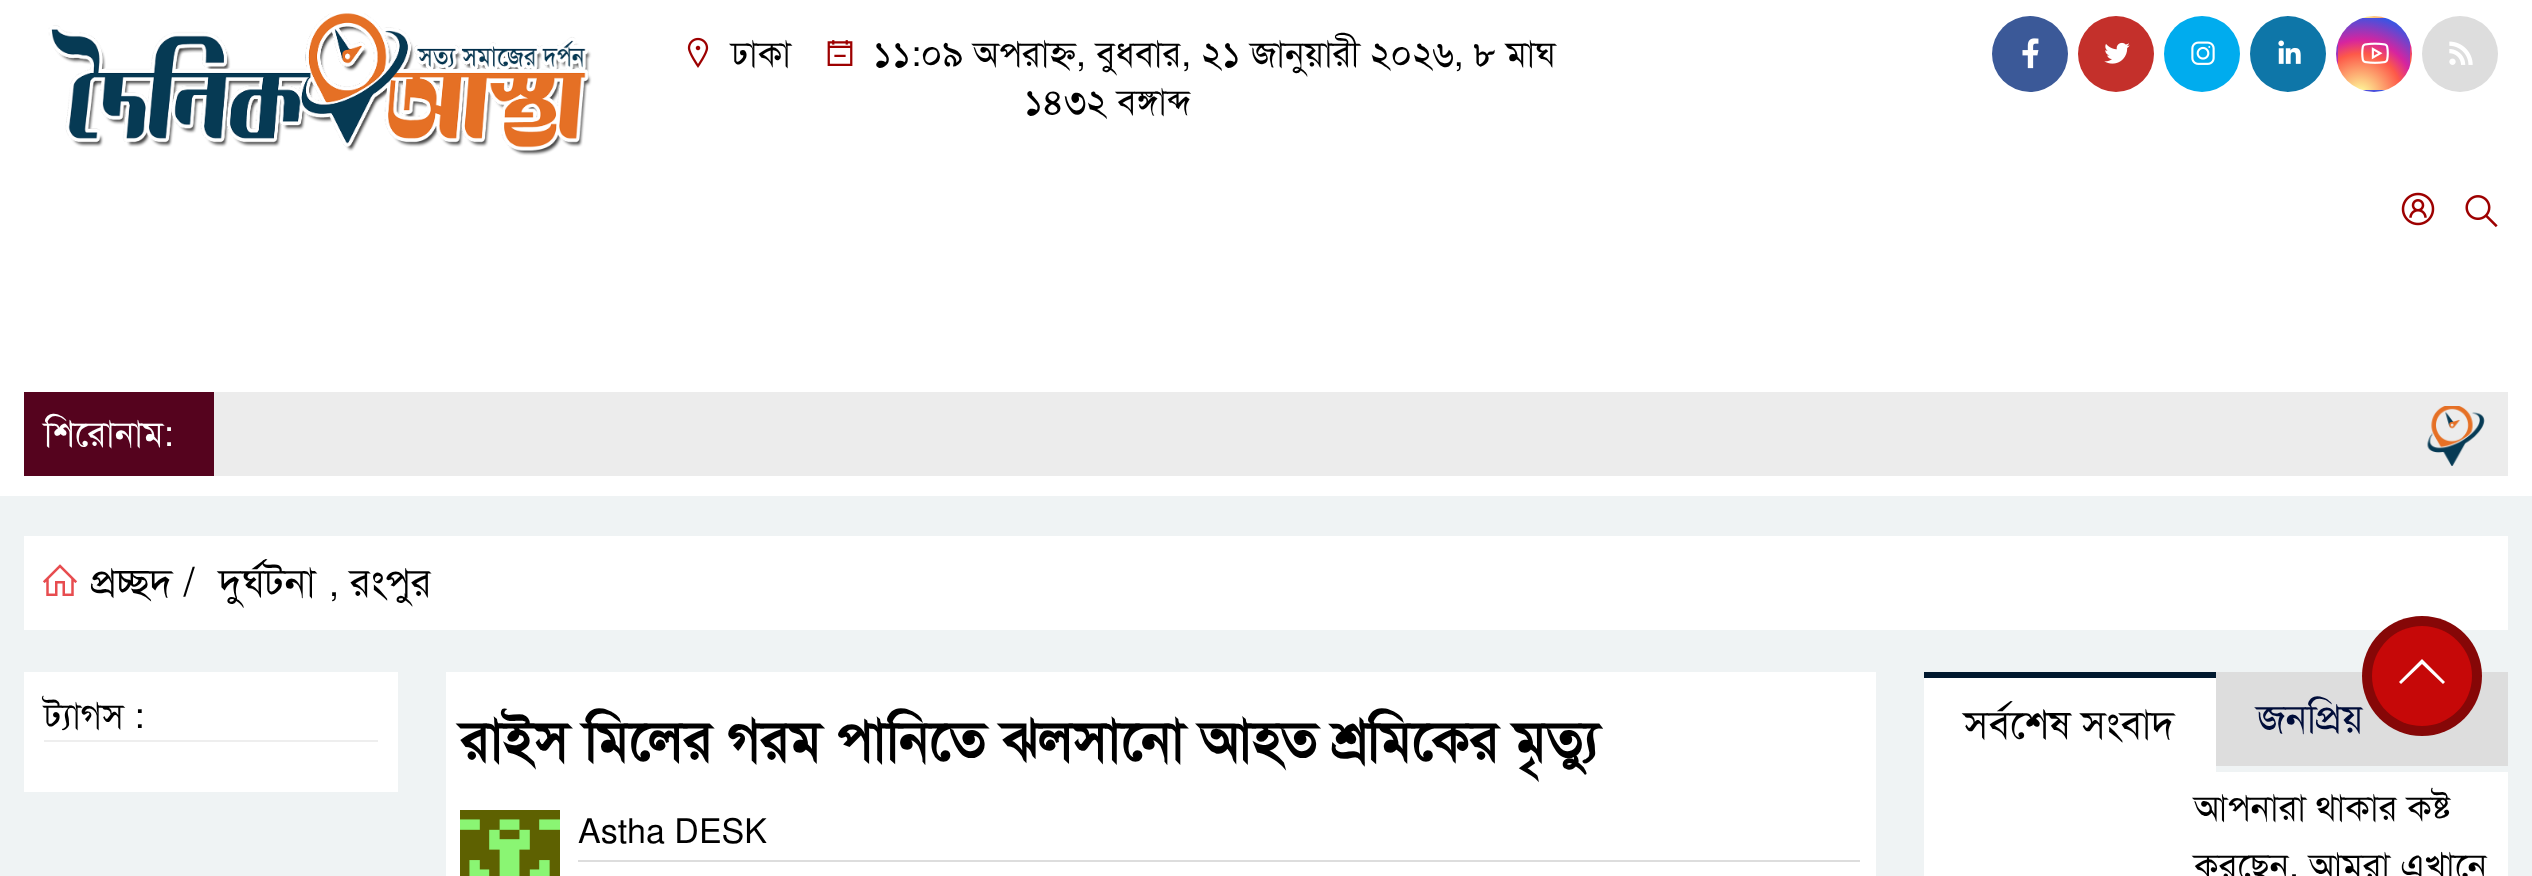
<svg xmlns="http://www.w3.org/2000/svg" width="2532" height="876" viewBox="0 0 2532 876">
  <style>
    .t1 { font: 36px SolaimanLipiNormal; fill: #000; }
    .t2 { font: 36px SolaimanLipiNormal; fill: #fff; }
    .t3 { font: 40px SolaimanLipiNormal; fill: #000; }
    .t4 { font: bold 56px SolaimanLipiNormal; fill: #000; }
    .t5 { font: 34px SolaimanLipiNormal; fill: #000; }
    .t6 { font: 40px SolaimanLipiNormal; fill: #000d39; }
  </style>
  <defs>
    <clipPath id="clip1"><rect x="2336" y="16" width="76" height="76" rx="38"/></clipPath>
    <radialGradient id="g1" gradientUnits="userSpaceOnUse" cx="2360" cy="23" r="92"><stop offset="0" stop-color="#fdf497"/><stop offset="0.05" stop-color="#fdf497"/><stop offset="0.45" stop-color="#fd5949"/><stop offset="0.6" stop-color="#d6249f"/><stop offset="0.9" stop-color="#285aeb"/></radialGradient>
    <radialGradient id="g2" gradientUnits="userSpaceOnUse" cx="2288" cy="95" r="92"><stop offset="0" stop-color="#fdf497"/><stop offset="0.05" stop-color="#fdf497"/><stop offset="0.45" stop-color="#fd5949"/><stop offset="0.6" stop-color="#d6249f"/><stop offset="0.9" stop-color="#285aeb"/></radialGradient>
    <radialGradient id="g3" gradientUnits="userSpaceOnUse" cx="2360" cy="95" r="92"><stop offset="0" stop-color="#fdf497"/><stop offset="0.05" stop-color="#fdf497"/><stop offset="0.45" stop-color="#fd5949"/><stop offset="0.6" stop-color="#d6249f"/><stop offset="0.9" stop-color="#285aeb"/></radialGradient>
    <radialGradient id="g4" gradientUnits="userSpaceOnUse" cx="2432" cy="95" r="92"><stop offset="0" stop-color="#fdf497"/><stop offset="0.05" stop-color="#fdf497"/><stop offset="0.45" stop-color="#fd5949"/><stop offset="0.6" stop-color="#d6249f"/><stop offset="0.9" stop-color="#285aeb"/></radialGradient>
    <radialGradient id="g5" gradientUnits="userSpaceOnUse" cx="2360" cy="167" r="92"><stop offset="0" stop-color="#fdf497"/><stop offset="0.05" stop-color="#fdf497"/><stop offset="0.45" stop-color="#fd5949"/><stop offset="0.6" stop-color="#d6249f"/><stop offset="0.9" stop-color="#285aeb"/></radialGradient>
  </defs>
  <rect width="100%" height="100%" fill="#fff"/>
  <image x="48" y="13" width="544" height="143" href="images/1.png"/>
  <image x="687" y="37" width="22" height="31" href="images/2.png"/>
  <text x="731" y="66" class="t1">ঢাকা</text>
  <image x="827" y="40" width="26" height="26" href="images/3.png"/>
  <text x="873" y="66" class="t1">১১:০৯ অপরাহ্ন, বুধবার, ২১ জানুয়ারী ২০২৬, ৮ মাঘ</text>
  <text x="1024" y="114" class="t1">১৪৩২ বঙ্গাব্দ</text>
  <circle cx="2030" cy="54" r="38" fill="#3b5998"/>
  <image x="2022" y="38" width="17" height="31" href="images/4.png"/>
  <circle cx="2116" cy="54" r="38" fill="#c4302b"/>
  <image x="2104" y="42" width="26" height="22" href="images/5.png"/>
  <circle cx="2202" cy="54" r="38" fill="#00acee"/>
  <image x="2191" y="41" width="24" height="24" href="images/6.png"/>
  <circle cx="2288" cy="54" r="38" fill="#0e76a8"/>
  <image x="2278" y="40" width="23" height="24" href="images/7.png"/>
  <g clip-path="url(#clip1)">
    <rect x="2362" y="16" width="24" height="2" fill="url(#g1)"/>
    <rect x="2336" y="42" width="2" height="24" fill="url(#g2)"/>
    <rect x="2338" y="18" width="72" height="72" fill="url(#g3)"/>
    <rect x="2410" y="42" width="2" height="24" fill="url(#g4)"/>
    <rect x="2362" y="90" width="24" height="2" fill="url(#g5)"/>
  </g>
  <image x="2361" y="42" width="28" height="22" href="images/8.png"/>
  <circle cx="2460" cy="54" r="38" fill="#ddd"/>
  <image x="2449" y="41" width="24" height="24" href="images/9.png"/>
  <image x="2401" y="192" width="34" height="34" href="images/10.png"/>
  <image x="2465" y="195" width="33" height="33" href="images/11.png"/>
  <rect x="24" y="392" width="190" height="84" fill="#55031e"/>
  <text x="44" y="446" class="t2">শিরোনাম:</text>
  <rect x="214" y="392" width="2294" height="84" fill="#ececec"/>
  <image x="2427" y="406" width="58" height="60" href="images/12.png"/>
  <rect x="0" y="496" width="2532" height="380" fill="#eff3f4"/>
  <rect x="24" y="536" width="2484" height="94" fill="#fff"/>
  <image x="42" y="564" width="36" height="32" href="images/13.png"/>
  <text x="91" y="596" class="t3">প্রচ্ছদ /</text>
  <text x="219" y="596" class="t3">দুর্ঘটনা</text>
  <text x="329" y="596" class="t1">,</text>
  <text x="350" y="596" class="t3">রংপুর</text>
  <rect x="24" y="672" width="374" height="120" fill="#fff"/>
  <rect x="44" y="740" width="334" height="2" fill="#eee"/>
  <text x="44" y="728" class="t1">ট্যাগস :</text>
  <rect x="446" y="672" width="1430" height="204" fill="#fff"/>
  <text x="460" y="760" class="t4">রাইস মিলের গরম পানিতে ঝলসানো আহত শ্রমিকের মৃত্যু</text>
  <image x="460" y="810" width="100" height="66" href="images/14.png"/>
  <rect x="578" y="860" width="1282" height="2" fill="#ddd"/>
  <text x="578" y="843" class="t5">Astha DESK</text>
  <rect x="1924" y="678" width="292" height="94" fill="#fff"/>
  <rect x="1924" y="672" width="292" height="6" fill="#01192f"/>
  <text x="1964" y="738" class="t3">সর্বশেষ সংবাদ</text>
  <rect x="2216" y="672" width="292" height="94" fill="#ddd"/>
  <text x="2257" y="732" class="t6">জনপ্রিয়</text>
  <rect x="1924" y="772" width="584" height="104" fill="#fff"/>
  <text x="2194" y="820" class="t1">আপনারা থাকার কষ্ট</text>
  <text x="2194" y="878" class="t1">করছেন, আমরা এখানে</text>
  <circle cx="2422" cy="676" r="60" fill="#860707"/>
  <circle cx="2422" cy="676" r="50" fill="#c60808"/>
  <path d="M2422 659L2399 682L2401 684L2422 664L2443 684L2445 682Z" fill="#fff"/>
</svg>
